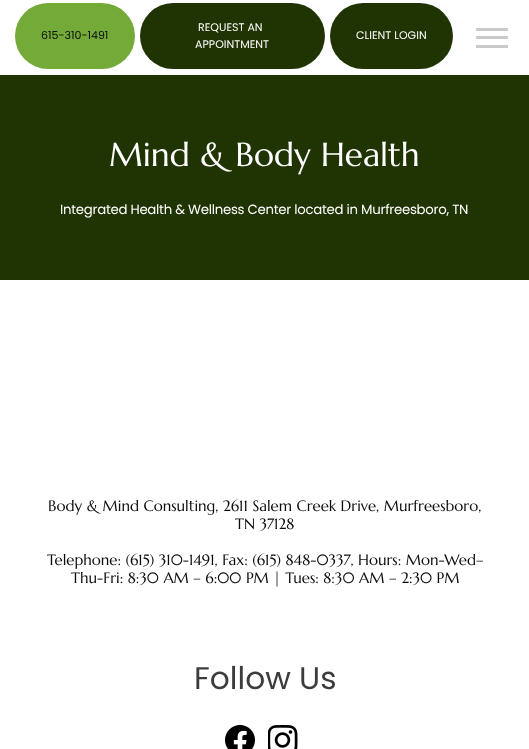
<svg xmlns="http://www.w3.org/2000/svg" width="529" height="749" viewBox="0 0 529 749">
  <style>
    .t1 { font: 11px Poppins; fill: #0c0c0c; }
    .t2 { font: 11px Poppins; fill: #fff; }
    .t3 { font: 33.25px Marcellus; fill: #fff; }
    .t4 { font: 13.3px Poppins; letter-spacing: -0.27px; fill: #fff; }
    .t5 { font: 15px Marcellus; fill: #0c0c0c; }
    .t6 { font: 31.25px Poppins; fill: #3c3c3c; }
  </style>
  <rect width="100%" height="100%" fill="#fff"/>
  <rect x="15" y="3" width="120" height="66" rx="33" fill="#73aa38"/>
  <text x="41" y="39" class="t1">615-310-1491</text>
  <rect x="140" y="3" width="185" height="66" rx="33" fill="#203403"/>
  <text x="198" y="31" class="t2">REQUEST AN</text>
  <text x="195" y="48" class="t2">APPOINTMENT</text>
  <rect x="330" y="3" width="123" height="66" rx="33" fill="#203403"/>
  <text x="356" y="39" class="t2">CLIENT LOGIN</text>
  <rect x="476" y="28" width="32" height="3" fill="#cacaca"/>
  <rect x="476" y="45" width="32" height="3" fill="#cacaca"/>
  <rect x="476" y="36" width="32" height="3" fill="#cacaca"/>
  <rect x="0" y="75" width="529" height="205" fill="#203403"/>
  <text x="109" y="166" class="t3">Mind &amp; Body Health</text>
  <text x="60" y="214" class="t4">Integrated Health &amp; Wellness Center located in Murfreesboro, TN</text>
  <text x="48" y="511" class="t5">Body &amp; Mind Consulting, 2611 Salem Creek Drive, Murfreesboro,</text>
  <text x="235" y="529" class="t5">TN 37128</text>
  <text x="47" y="565" class="t5">Telephone: (615) 310-1491, Fax: (615) 848-0337, Hours: Mon-Wed–</text>
  <text x="71" y="583" class="t5">Thu-Fri: 8:30 AM – 6:00 PM | Tues: 8:30 AM – 2:30 PM</text>
  <text x="194" y="689" class="t6">Follow Us</text>
  <image x="225" y="725" width="30" height="24" href="images/1.png"/>
  <image x="268" y="725" width="30" height="24" href="images/2.png"/>
</svg>
